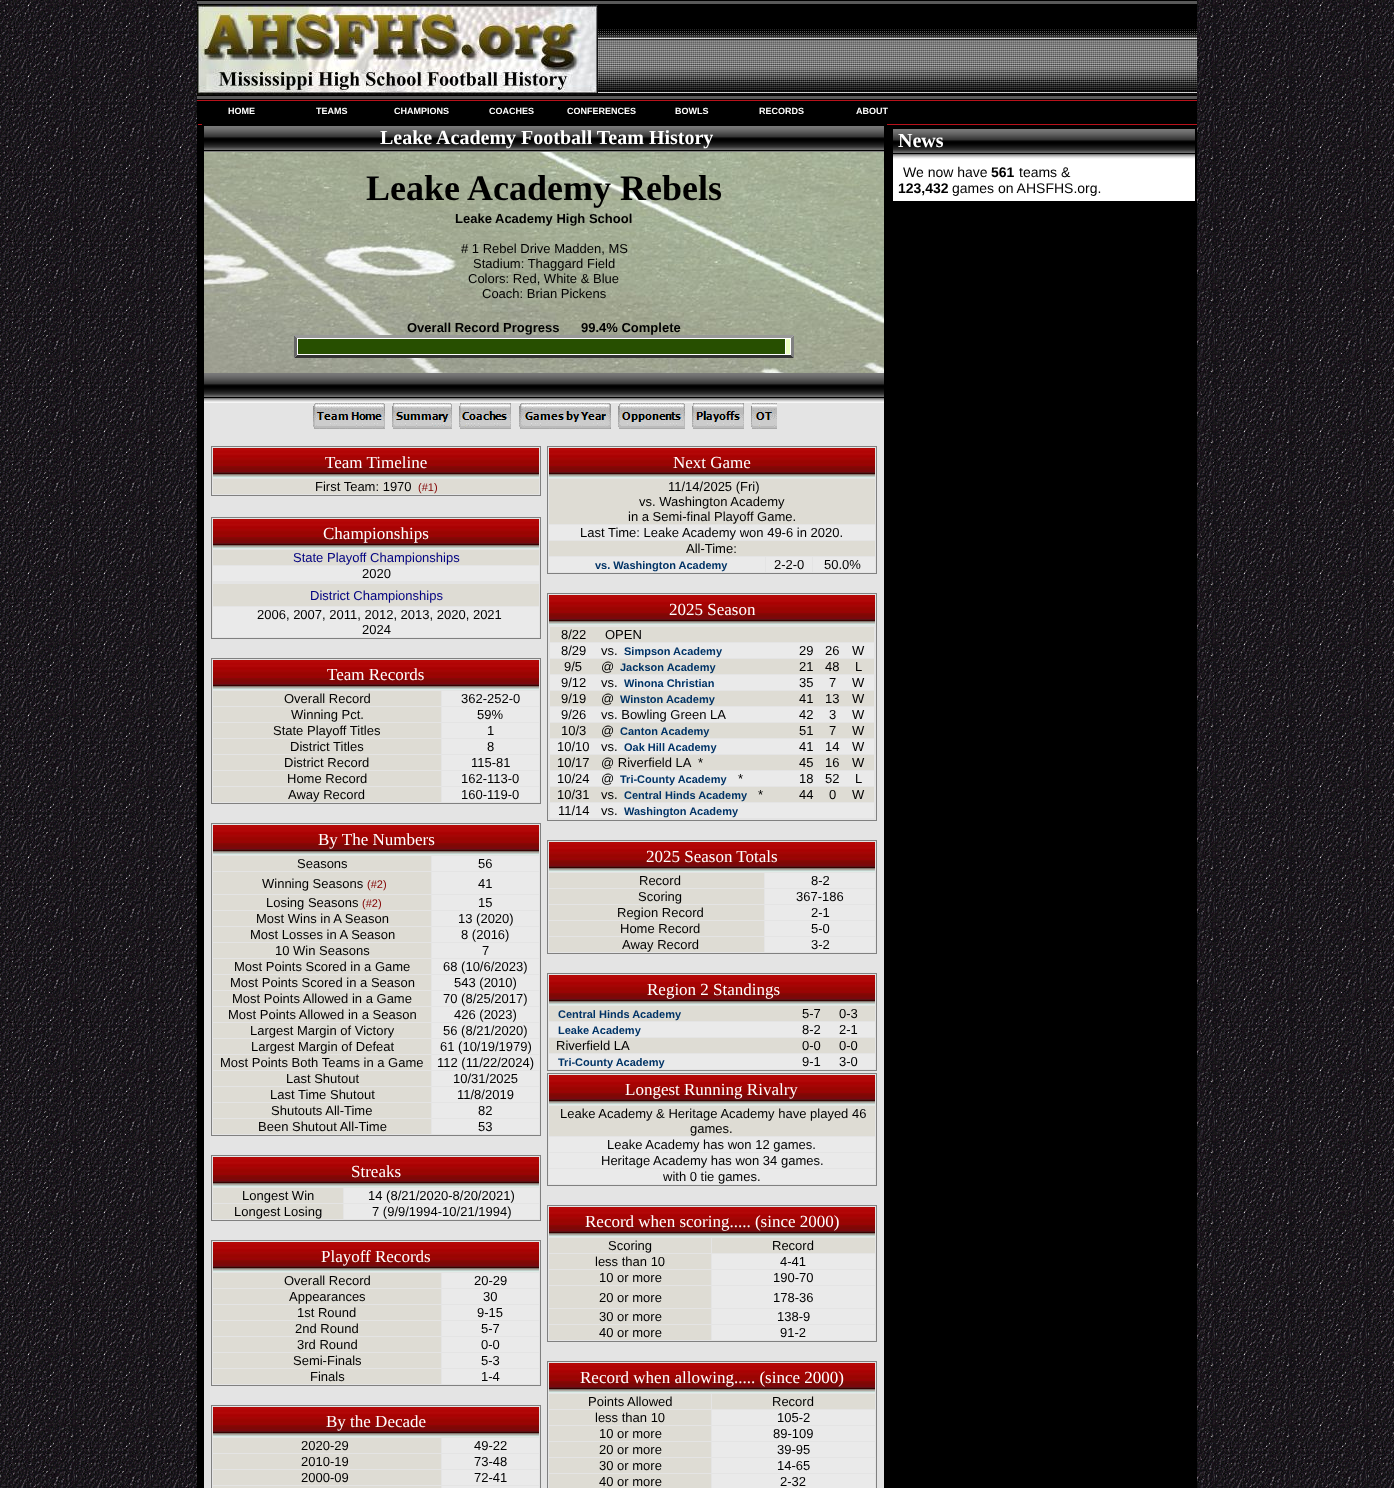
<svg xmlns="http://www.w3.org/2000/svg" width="1394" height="1488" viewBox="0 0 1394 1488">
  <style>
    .t1 { font: bold 9px Liberation Sans; fill: #fff; }
    .t2 { font: bold 20px Liberation Serif; fill: #fff; }
    .t3 { font: bold 36px Liberation Serif; fill: #000; }
    .t4 { font: bold 13px Liberation Sans; fill: #000; }
    .t5 { font: 13px Liberation Sans; fill: #000; }
    .t6 { font: 17px Liberation Serif; fill: #fff; }
    .t7 { font: 11px Liberation Sans; fill: #800000; }
    .t8 { font: 13px Liberation Sans; fill: #000080; }
    .t9 { font: bold 11px Liberation Sans; fill: #036; }
    .t10 { font: 14px Liberation Sans; fill: #000; }
    .t11 { font: bold 14px Liberation Sans; fill: #000; }
  </style>
  <rect width="100%" height="100%" fill="#fff"/>
  <image x="0" y="0" width="1394" height="1488" href="images/1.png"/>
  <rect x="197" y="0" width="1000" height="1488" fill="#000"/>
  <rect x="197" y="1" width="1000" height="3" fill="#595959"/>
  <image x="598" y="29" width="599" height="66" href="images/2.png"/>
  <image x="197" y="5" width="401" height="90" href="images/3.png"/>
  <rect x="197" y="96" width="1000" height="3" fill="#595959"/>
  <rect x="197" y="100" width="1000" height="1" fill="#b9121b"/>
  <rect x="197" y="124" width="1000" height="1" fill="#b9121b"/>
  <text x="228" y="114" class="t1">HOME</text>
  <text x="316" y="114" class="t1">TEAMS</text>
  <text x="394" y="114" class="t1">CHAMPIONS</text>
  <text x="489" y="114" class="t1">COACHES</text>
  <text x="567" y="114" class="t1">CONFERENCES</text>
  <text x="675" y="114" class="t1">BOWLS</text>
  <text x="759" y="114" class="t1">RECORDS</text>
  <text x="856" y="114" class="t1">ABOUT</text>
  <rect x="886" y="120" width="1" height="5" fill="#000"/>
  <rect x="197" y="120" width="1" height="5" fill="#000"/>
  <rect x="203" y="125" width="682" height="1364" fill="none" stroke="#000" stroke-width="2"/>
  <image x="204" y="126" width="680" height="26" href="images/4.png"/>
  <text x="380" y="144" class="t2">Leake Academy Football Team History</text>
  <image x="204" y="152" width="680" height="221" href="images/5.png"/>
  <text x="366" y="200" class="t3">Leake Academy Rebels</text>
  <text x="455" y="223" class="t4">Leake Academy High School</text>
  <text x="461" y="253" class="t5"># 1 Rebel Drive Madden, MS</text>
  <text x="473" y="268" class="t5">Stadium: Thaggard Field</text>
  <text x="468" y="283" class="t5">Colors: Red, White &amp; Blue</text>
  <text x="482" y="298" class="t5">Coach: Brian Pickens</text>
  <text x="407" y="332" class="t4">Overall Record Progress</text>
  <text x="581" y="332" class="t4">99.4% Complete</text>
  <rect x="294" y="335" width="500" height="23" fill="#fff"/>
  <path d="M294 335H794L791 338H297Z" fill="#999"/>
  <path d="M794 335V358L791 355V338Z" fill="#808080"/>
  <path d="M794 358H294L297 355H791Z" fill="#333"/>
  <path d="M294 358V335L297 338V355Z" fill="#666"/>
  <rect x="298" y="339" width="487" height="15" fill="#274f00"/>
  <rect x="786" y="339" width="4" height="15" fill="#ebffbf"/>
  <rect x="204" y="403" width="680" height="1085" fill="#e4e4e4"/>
  <image x="204" y="373" width="680" height="30" href="images/6.png"/>
  <image x="313" y="403" width="72" height="26" href="images/7.png"/>
  <image x="392" y="403" width="60" height="26" href="images/8.png"/>
  <image x="459" y="403" width="52" height="26" href="images/9.png"/>
  <image x="519" y="403" width="92" height="26" href="images/10.png"/>
  <image x="618" y="403" width="67" height="26" href="images/11.png"/>
  <image x="692" y="403" width="52" height="26" href="images/12.png"/>
  <image x="751" y="403" width="26" height="26" href="images/13.png"/>
  <rect x="211.5" y="446.5" width="329" height="49" fill="none" stroke="#808080"/>
  <image x="213" y="448" width="326" height="30" href="images/14.png"/>
  <text x="325" y="468" class="t6">Team Timeline</text>
  <rect x="213" y="479" width="326" height="15" fill="#dedcd4"/>
  <text x="315" y="491" class="t5">First Team: 1970</text>
  <text x="418" y="491" class="t7">(#1)</text>
  <rect x="211.5" y="517.5" width="329" height="121" fill="none" stroke="#808080"/>
  <image x="213" y="519" width="326" height="30" href="images/14.png"/>
  <text x="323" y="539" class="t6">Championships</text>
  <rect x="213" y="550" width="326" height="15" fill="#dedcd4"/>
  <text x="293" y="562" class="t8">State Playoff Championships</text>
  <rect x="213" y="566" width="326" height="15" fill="#eaeaea"/>
  <text x="362" y="578" class="t5">2020</text>
  <rect x="213" y="584" width="326" height="22" fill="#dedcd4"/>
  <text x="310" y="600" class="t8">District Championships</text>
  <rect x="213" y="607" width="326" height="30" fill="#eaeaea"/>
  <text x="257" y="619" class="t5">2006, 2007, 2011, 2012, 2013, 2020, 2021</text>
  <text x="362" y="634" class="t5">2024</text>
  <rect x="211.5" y="658.5" width="329" height="145" fill="none" stroke="#808080"/>
  <image x="213" y="660" width="326" height="30" href="images/14.png"/>
  <text x="327" y="680" class="t6">Team Records</text>
  <rect x="213" y="691" width="228" height="15" fill="#dedcd4"/>
  <text x="284" y="703" class="t5">Overall Record</text>
  <rect x="442" y="691" width="97" height="15" fill="#eaeaea"/>
  <text x="461" y="703" class="t5">362-252-0</text>
  <rect x="213" y="707" width="228" height="15" fill="#dedcd4"/>
  <text x="291" y="719" class="t5">Winning Pct.</text>
  <rect x="442" y="707" width="97" height="15" fill="#eaeaea"/>
  <text x="477" y="719" class="t5">59%</text>
  <rect x="213" y="723" width="228" height="15" fill="#dedcd4"/>
  <text x="273" y="735" class="t5">State Playoff Titles</text>
  <rect x="442" y="723" width="97" height="15" fill="#eaeaea"/>
  <text x="487" y="735" class="t5">1</text>
  <rect x="213" y="739" width="228" height="15" fill="#dedcd4"/>
  <text x="290" y="751" class="t5">District Titles</text>
  <rect x="442" y="739" width="97" height="15" fill="#eaeaea"/>
  <text x="487" y="751" class="t5">8</text>
  <rect x="213" y="755" width="228" height="15" fill="#dedcd4"/>
  <text x="284" y="767" class="t5">District Record</text>
  <rect x="442" y="755" width="97" height="15" fill="#eaeaea"/>
  <text x="471" y="767" class="t5">115-81</text>
  <rect x="213" y="771" width="228" height="15" fill="#dedcd4"/>
  <text x="287" y="783" class="t5">Home Record</text>
  <rect x="442" y="771" width="97" height="15" fill="#eaeaea"/>
  <text x="461" y="783" class="t5">162-113-0</text>
  <rect x="213" y="787" width="228" height="15" fill="#dedcd4"/>
  <text x="288" y="799" class="t5">Away Record</text>
  <rect x="442" y="787" width="97" height="15" fill="#eaeaea"/>
  <text x="461" y="799" class="t5">160-119-0</text>
  <rect x="211.5" y="823.5" width="329" height="312" fill="none" stroke="#808080"/>
  <image x="213" y="825" width="326" height="30" href="images/14.png"/>
  <text x="318" y="845" class="t6">By The Numbers</text>
  <rect x="213" y="856" width="218" height="15" fill="#dedcd4"/>
  <text x="297" y="868" class="t5">Seasons</text>
  <rect x="432" y="856" width="107" height="15" fill="#eaeaea"/>
  <text x="478" y="868" class="t5">56</text>
  <rect x="213" y="872" width="218" height="22" fill="#dedcd4"/>
  <text x="262" y="888" class="t5">Winning Seasons</text>
  <text x="367" y="888" class="t7">(#2)</text>
  <rect x="432" y="872" width="107" height="22" fill="#eaeaea"/>
  <text x="478" y="888" class="t5">41</text>
  <rect x="213" y="895" width="218" height="15" fill="#dedcd4"/>
  <text x="266" y="907" class="t5">Losing Seasons</text>
  <text x="362" y="907" class="t7">(#2)</text>
  <rect x="432" y="895" width="107" height="15" fill="#eaeaea"/>
  <text x="478" y="907" class="t5">15</text>
  <rect x="213" y="911" width="218" height="15" fill="#dedcd4"/>
  <text x="256" y="923" class="t5">Most Wins in A Season</text>
  <rect x="432" y="911" width="107" height="15" fill="#eaeaea"/>
  <text x="458" y="923" class="t5">13 (2020)</text>
  <rect x="213" y="927" width="218" height="15" fill="#dedcd4"/>
  <text x="250" y="939" class="t5">Most Losses in A Season</text>
  <rect x="432" y="927" width="107" height="15" fill="#eaeaea"/>
  <text x="461" y="939" class="t5">8 (2016)</text>
  <rect x="213" y="943" width="218" height="15" fill="#dedcd4"/>
  <text x="275" y="955" class="t5">10 Win Seasons</text>
  <rect x="432" y="943" width="107" height="15" fill="#eaeaea"/>
  <text x="482" y="955" class="t5">7</text>
  <rect x="213" y="959" width="218" height="15" fill="#dedcd4"/>
  <text x="234" y="971" class="t5">Most Points Scored in a Game</text>
  <rect x="432" y="959" width="107" height="15" fill="#eaeaea"/>
  <text x="443" y="971" class="t5">68 (10/6/2023)</text>
  <rect x="213" y="975" width="218" height="15" fill="#dedcd4"/>
  <text x="230" y="987" class="t5">Most Points Scored in a Season</text>
  <rect x="432" y="975" width="107" height="15" fill="#eaeaea"/>
  <text x="454" y="987" class="t5">543 (2010)</text>
  <rect x="213" y="991" width="218" height="15" fill="#dedcd4"/>
  <text x="232" y="1003" class="t5">Most Points Allowed in a Game</text>
  <rect x="432" y="991" width="107" height="15" fill="#eaeaea"/>
  <text x="443" y="1003" class="t5">70 (8/25/2017)</text>
  <rect x="213" y="1007" width="218" height="15" fill="#dedcd4"/>
  <text x="228" y="1019" class="t5">Most Points Allowed in a Season</text>
  <rect x="432" y="1007" width="107" height="15" fill="#eaeaea"/>
  <text x="454" y="1019" class="t5">426 (2023)</text>
  <rect x="213" y="1023" width="218" height="15" fill="#dedcd4"/>
  <text x="250" y="1035" class="t5">Largest Margin of Victory</text>
  <rect x="432" y="1023" width="107" height="15" fill="#eaeaea"/>
  <text x="443" y="1035" class="t5">56 (8/21/2020)</text>
  <rect x="213" y="1039" width="218" height="15" fill="#dedcd4"/>
  <text x="251" y="1051" class="t5">Largest Margin of Defeat</text>
  <rect x="432" y="1039" width="107" height="15" fill="#eaeaea"/>
  <text x="440" y="1051" class="t5">61 (10/19/1979)</text>
  <rect x="213" y="1055" width="218" height="15" fill="#dedcd4"/>
  <text x="220" y="1067" class="t5">Most Points Both Teams in a Game</text>
  <rect x="432" y="1055" width="107" height="15" fill="#eaeaea"/>
  <text x="437" y="1067" class="t5">112 (11/22/2024)</text>
  <rect x="213" y="1071" width="218" height="15" fill="#dedcd4"/>
  <text x="286" y="1083" class="t5">Last Shutout</text>
  <rect x="432" y="1071" width="107" height="15" fill="#eaeaea"/>
  <text x="453" y="1083" class="t5">10/31/2025</text>
  <rect x="213" y="1087" width="218" height="15" fill="#dedcd4"/>
  <text x="270" y="1099" class="t5">Last Time Shutout</text>
  <rect x="432" y="1087" width="107" height="15" fill="#eaeaea"/>
  <text x="457" y="1099" class="t5">11/8/2019</text>
  <rect x="213" y="1103" width="218" height="15" fill="#dedcd4"/>
  <text x="271" y="1115" class="t5">Shutouts All-Time</text>
  <rect x="432" y="1103" width="107" height="15" fill="#eaeaea"/>
  <text x="478" y="1115" class="t5">82</text>
  <rect x="213" y="1119" width="218" height="15" fill="#dedcd4"/>
  <text x="258" y="1131" class="t5">Been Shutout All-Time</text>
  <rect x="432" y="1119" width="107" height="15" fill="#eaeaea"/>
  <text x="478" y="1131" class="t5">53</text>
  <rect x="211.5" y="1155.5" width="329" height="65" fill="none" stroke="#808080"/>
  <image x="213" y="1157" width="326" height="30" href="images/14.png"/>
  <text x="351" y="1177" class="t6">Streaks</text>
  <rect x="213" y="1188" width="130" height="15" fill="#dedcd4"/>
  <text x="242" y="1200" class="t5">Longest Win</text>
  <rect x="344" y="1188" width="195" height="15" fill="#eaeaea"/>
  <text x="368" y="1200" class="t5">14 (8/21/2020-8/20/2021)</text>
  <rect x="213" y="1204" width="130" height="15" fill="#dedcd4"/>
  <text x="234" y="1216" class="t5">Longest Losing</text>
  <rect x="344" y="1204" width="195" height="15" fill="#eaeaea"/>
  <text x="372" y="1216" class="t5">7 (9/9/1994-10/21/1994)</text>
  <rect x="211.5" y="1240.5" width="329" height="145" fill="none" stroke="#808080"/>
  <image x="213" y="1242" width="326" height="30" href="images/14.png"/>
  <text x="321" y="1262" class="t6">Playoff Records</text>
  <rect x="213" y="1273" width="228" height="15" fill="#dedcd4"/>
  <text x="284" y="1285" class="t5">Overall Record</text>
  <rect x="442" y="1273" width="97" height="15" fill="#eaeaea"/>
  <text x="474" y="1285" class="t5">20-29</text>
  <rect x="213" y="1289" width="228" height="15" fill="#dedcd4"/>
  <text x="289" y="1301" class="t5">Appearances</text>
  <rect x="442" y="1289" width="97" height="15" fill="#eaeaea"/>
  <text x="483" y="1301" class="t5">30</text>
  <rect x="213" y="1305" width="228" height="15" fill="#dedcd4"/>
  <text x="297" y="1317" class="t5">1st Round</text>
  <rect x="442" y="1305" width="97" height="15" fill="#eaeaea"/>
  <text x="477" y="1317" class="t5">9-15</text>
  <rect x="213" y="1321" width="228" height="15" fill="#dedcd4"/>
  <text x="295" y="1333" class="t5">2nd Round</text>
  <rect x="442" y="1321" width="97" height="15" fill="#eaeaea"/>
  <text x="481" y="1333" class="t5">5-7</text>
  <rect x="213" y="1337" width="228" height="15" fill="#dedcd4"/>
  <text x="297" y="1349" class="t5">3rd Round</text>
  <rect x="442" y="1337" width="97" height="15" fill="#eaeaea"/>
  <text x="481" y="1349" class="t5">0-0</text>
  <rect x="213" y="1353" width="228" height="15" fill="#dedcd4"/>
  <text x="293" y="1365" class="t5">Semi-Finals</text>
  <rect x="442" y="1353" width="97" height="15" fill="#eaeaea"/>
  <text x="481" y="1365" class="t5">5-3</text>
  <rect x="213" y="1369" width="228" height="15" fill="#dedcd4"/>
  <text x="310" y="1381" class="t5">Finals</text>
  <rect x="442" y="1369" width="97" height="15" fill="#eaeaea"/>
  <text x="481" y="1381" class="t5">1-4</text>
  <rect x="211.5" y="1405.5" width="329" height="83" fill="none" stroke="#808080"/>
  <image x="213" y="1407" width="326" height="30" href="images/14.png"/>
  <text x="326" y="1427" class="t6">By the Decade</text>
  <rect x="213" y="1438" width="228" height="15" fill="#dedcd4"/>
  <text x="301" y="1450" class="t5">2020-29</text>
  <rect x="442" y="1438" width="97" height="15" fill="#eaeaea"/>
  <text x="474" y="1450" class="t5">49-22</text>
  <rect x="213" y="1454" width="228" height="15" fill="#dedcd4"/>
  <text x="301" y="1466" class="t5">2010-19</text>
  <rect x="442" y="1454" width="97" height="15" fill="#eaeaea"/>
  <text x="474" y="1466" class="t5">73-48</text>
  <rect x="213" y="1470" width="228" height="15" fill="#dedcd4"/>
  <text x="301" y="1482" class="t5">2000-09</text>
  <rect x="442" y="1470" width="97" height="15" fill="#eaeaea"/>
  <text x="474" y="1482" class="t5">72-41</text>
  <rect x="213" y="1486" width="228" height="2" fill="#dedcd4"/>
  <rect x="442" y="1486" width="97" height="2" fill="#eaeaea"/>
  <rect x="547.5" y="446.5" width="329" height="127" fill="none" stroke="#808080"/>
  <image x="549" y="448" width="326" height="30" href="images/14.png"/>
  <text x="673" y="468" class="t6">Next Game</text>
  <rect x="549" y="479" width="326" height="45" fill="#dedcd4"/>
  <text x="668" y="491" class="t5">11/14/2025 (Fri)</text>
  <text x="639" y="506" class="t5">vs. Washington Academy</text>
  <text x="628" y="521" class="t5">in a Semi-final Playoff Game.</text>
  <rect x="549" y="525" width="326" height="15" fill="#eaeaea"/>
  <text x="580" y="537" class="t5">Last Time: Leake Academy won 49-6 in 2020.</text>
  <rect x="549" y="541" width="326" height="15" fill="#dedcd4"/>
  <text x="686" y="553" class="t5">All-Time:</text>
  <rect x="549" y="557" width="216" height="15" fill="#eaeaea"/>
  <text x="595" y="569" class="t9">vs. Washington Academy</text>
  <rect x="766" y="557" width="46" height="15" fill="#eaeaea"/>
  <text x="774" y="569" class="t5">2-2-0</text>
  <rect x="813" y="557" width="62" height="15" fill="#eaeaea"/>
  <text x="824" y="569" class="t5">50.0%</text>
  <rect x="547.5" y="593.5" width="329" height="227" fill="none" stroke="#808080"/>
  <image x="549" y="595" width="326" height="30" href="images/14.png"/>
  <text x="669" y="615" class="t6">2025 Season</text>
  <rect x="550" y="627" width="324" height="15" fill="#dedcd4"/>
  <text x="561" y="639" class="t5">8/22</text>
  <text x="605" y="639" class="t5">OPEN</text>
  <rect x="550" y="643" width="324" height="15" fill="#eaeaea"/>
  <text x="561" y="655" class="t5">8/29</text>
  <text x="601" y="655" class="t5">vs.</text>
  <text x="624" y="655" class="t9">Simpson Academy</text>
  <text x="799" y="655" class="t5">29</text>
  <text x="825" y="655" class="t5">26</text>
  <text x="852" y="655" class="t5">W</text>
  <rect x="550" y="659" width="324" height="15" fill="#dedcd4"/>
  <text x="564" y="671" class="t5">9/5</text>
  <text x="601" y="671" class="t5">@</text>
  <text x="620" y="671" class="t9">Jackson Academy</text>
  <text x="799" y="671" class="t5">21</text>
  <text x="825" y="671" class="t5">48</text>
  <text x="855" y="671" class="t5">L</text>
  <rect x="550" y="675" width="324" height="15" fill="#eaeaea"/>
  <text x="561" y="687" class="t5">9/12</text>
  <text x="601" y="687" class="t5">vs.</text>
  <text x="624" y="687" class="t9">Winona Christian</text>
  <text x="799" y="687" class="t5">35</text>
  <text x="829" y="687" class="t5">7</text>
  <text x="852" y="687" class="t5">W</text>
  <rect x="550" y="691" width="324" height="15" fill="#dedcd4"/>
  <text x="561" y="703" class="t5">9/19</text>
  <text x="601" y="703" class="t5">@</text>
  <text x="620" y="703" class="t9">Winston Academy</text>
  <text x="799" y="703" class="t5">41</text>
  <text x="825" y="703" class="t5">13</text>
  <text x="852" y="703" class="t5">W</text>
  <rect x="550" y="707" width="324" height="15" fill="#eaeaea"/>
  <text x="561" y="719" class="t5">9/26</text>
  <text x="601" y="719" class="t5">vs. Bowling Green LA</text>
  <text x="799" y="719" class="t5">42</text>
  <text x="829" y="719" class="t5">3</text>
  <text x="852" y="719" class="t5">W</text>
  <rect x="550" y="723" width="324" height="15" fill="#dedcd4"/>
  <text x="561" y="735" class="t5">10/3</text>
  <text x="601" y="735" class="t5">@</text>
  <text x="620" y="735" class="t9">Canton Academy</text>
  <text x="799" y="735" class="t5">51</text>
  <text x="829" y="735" class="t5">7</text>
  <text x="852" y="735" class="t5">W</text>
  <rect x="550" y="739" width="324" height="15" fill="#eaeaea"/>
  <text x="557" y="751" class="t5">10/10</text>
  <text x="601" y="751" class="t5">vs.</text>
  <text x="624" y="751" class="t9">Oak Hill Academy</text>
  <text x="799" y="751" class="t5">41</text>
  <text x="825" y="751" class="t5">14</text>
  <text x="852" y="751" class="t5">W</text>
  <rect x="550" y="755" width="324" height="15" fill="#dedcd4"/>
  <text x="557" y="767" class="t5">10/17</text>
  <text x="601" y="767" class="t5" xml:space="preserve">@ Riverfield LA  *</text>
  <text x="799" y="767" class="t5">45</text>
  <text x="825" y="767" class="t5">16</text>
  <text x="852" y="767" class="t5">W</text>
  <rect x="550" y="771" width="324" height="15" fill="#eaeaea"/>
  <text x="557" y="783" class="t5">10/24</text>
  <text x="601" y="783" class="t5">@</text>
  <text x="620" y="783" class="t9">Tri-County Academy</text>
  <text x="738" y="783" class="t5">*</text>
  <text x="799" y="783" class="t5">18</text>
  <text x="825" y="783" class="t5">52</text>
  <text x="855" y="783" class="t5">L</text>
  <rect x="550" y="787" width="324" height="15" fill="#dedcd4"/>
  <text x="557" y="799" class="t5">10/31</text>
  <text x="601" y="799" class="t5">vs.</text>
  <text x="624" y="799" class="t9">Central Hinds Academy</text>
  <text x="758" y="799" class="t5">*</text>
  <text x="799" y="799" class="t5">44</text>
  <text x="829" y="799" class="t5">0</text>
  <text x="852" y="799" class="t5">W</text>
  <rect x="550" y="803" width="324" height="15" fill="#eaeaea"/>
  <text x="558" y="815" class="t5">11/14</text>
  <text x="601" y="815" class="t5">vs.</text>
  <text x="624" y="815" class="t9">Washington Academy</text>
  <rect x="547.5" y="840.5" width="329" height="113" fill="none" stroke="#808080"/>
  <image x="549" y="842" width="326" height="30" href="images/14.png"/>
  <text x="646" y="862" class="t6">2025 Season Totals</text>
  <rect x="549" y="873" width="215" height="15" fill="#dedcd4"/>
  <text x="639" y="885" class="t5">Record</text>
  <rect x="765" y="873" width="110" height="15" fill="#eaeaea"/>
  <text x="811" y="885" class="t5">8-2</text>
  <rect x="549" y="889" width="215" height="15" fill="#dedcd4"/>
  <text x="638" y="901" class="t5">Scoring</text>
  <rect x="765" y="889" width="110" height="15" fill="#eaeaea"/>
  <text x="796" y="901" class="t5">367-186</text>
  <rect x="549" y="905" width="215" height="15" fill="#dedcd4"/>
  <text x="617" y="917" class="t5">Region Record</text>
  <rect x="765" y="905" width="110" height="15" fill="#eaeaea"/>
  <text x="811" y="917" class="t5">2-1</text>
  <rect x="549" y="921" width="215" height="15" fill="#dedcd4"/>
  <text x="620" y="933" class="t5">Home Record</text>
  <rect x="765" y="921" width="110" height="15" fill="#eaeaea"/>
  <text x="811" y="933" class="t5">5-0</text>
  <rect x="549" y="937" width="215" height="15" fill="#dedcd4"/>
  <text x="622" y="949" class="t5">Away Record</text>
  <rect x="765" y="937" width="110" height="15" fill="#eaeaea"/>
  <text x="811" y="949" class="t5">3-2</text>
  <rect x="547.5" y="973.5" width="329" height="97" fill="none" stroke="#808080"/>
  <image x="549" y="975" width="326" height="30" href="images/14.png"/>
  <text x="647" y="995" class="t6">Region 2 Standings</text>
  <rect x="549" y="1006" width="326" height="15" fill="#dedcd4"/>
  <text x="558" y="1018" class="t9">Central Hinds Academy</text>
  <text x="802" y="1018" class="t5">5-7</text>
  <text x="839" y="1018" class="t5">0-3</text>
  <rect x="549" y="1022" width="326" height="15" fill="#eaeaea"/>
  <text x="558" y="1034" class="t9">Leake Academy</text>
  <text x="802" y="1034" class="t5">8-2</text>
  <text x="839" y="1034" class="t5">2-1</text>
  <rect x="549" y="1038" width="326" height="15" fill="#dedcd4"/>
  <text x="556" y="1050" class="t5">Riverfield LA</text>
  <text x="802" y="1050" class="t5">0-0</text>
  <text x="839" y="1050" class="t5">0-0</text>
  <rect x="549" y="1054" width="326" height="15" fill="#eaeaea"/>
  <text x="558" y="1066" class="t9">Tri-County Academy</text>
  <text x="802" y="1066" class="t5">9-1</text>
  <text x="839" y="1066" class="t5">3-0</text>
  <rect x="547.5" y="1073.5" width="329" height="112" fill="none" stroke="#808080"/>
  <image x="549" y="1075" width="326" height="30" href="images/14.png"/>
  <text x="625" y="1095" class="t6">Longest Running Rivalry</text>
  <rect x="549" y="1106" width="326" height="30" fill="#dedcd4"/>
  <text x="560" y="1118" class="t5">Leake Academy &amp; Heritage Academy have played 46</text>
  <text x="690" y="1133" class="t5">games.</text>
  <rect x="549" y="1137" width="326" height="15" fill="#eaeaea"/>
  <text x="607" y="1149" class="t5">Leake Academy has won 12 games.</text>
  <rect x="549" y="1153" width="326" height="15" fill="#eaeaea"/>
  <text x="601" y="1165" class="t5">Heritage Academy has won 34 games.</text>
  <rect x="549" y="1169" width="326" height="15" fill="#eaeaea"/>
  <text x="663" y="1181" class="t5">with 0 tie games.</text>
  <rect x="547.5" y="1205.5" width="329" height="136" fill="none" stroke="#808080"/>
  <image x="549" y="1207" width="326" height="30" href="images/14.png"/>
  <text x="585" y="1227" class="t6">Record when scoring..... (since 2000)</text>
  <rect x="549" y="1238" width="162" height="15" fill="#dedcd4"/>
  <text x="608" y="1250" class="t5">Scoring</text>
  <rect x="712" y="1238" width="163" height="15" fill="#dedcd4"/>
  <text x="772" y="1250" class="t5">Record</text>
  <rect x="549" y="1254" width="162" height="15" fill="#dedcd4"/>
  <text x="595" y="1266" class="t5">less than 10</text>
  <rect x="712" y="1254" width="163" height="15" fill="#eaeaea"/>
  <text x="780" y="1266" class="t5">4-41</text>
  <rect x="549" y="1270" width="162" height="15" fill="#dedcd4"/>
  <text x="599" y="1282" class="t5">10 or more</text>
  <rect x="712" y="1270" width="163" height="15" fill="#eaeaea"/>
  <text x="773" y="1282" class="t5">190-70</text>
  <rect x="549" y="1286" width="162" height="22" fill="#dedcd4"/>
  <text x="599" y="1302" class="t5">20 or more</text>
  <rect x="712" y="1286" width="163" height="22" fill="#eaeaea"/>
  <text x="773" y="1302" class="t5">178-36</text>
  <rect x="549" y="1309" width="162" height="15" fill="#dedcd4"/>
  <text x="599" y="1321" class="t5">30 or more</text>
  <rect x="712" y="1309" width="163" height="15" fill="#eaeaea"/>
  <text x="777" y="1321" class="t5">138-9</text>
  <rect x="549" y="1325" width="162" height="15" fill="#dedcd4"/>
  <text x="599" y="1337" class="t5">40 or more</text>
  <rect x="712" y="1325" width="163" height="15" fill="#eaeaea"/>
  <text x="780" y="1337" class="t5">91-2</text>
  <rect x="547.5" y="1361.5" width="329" height="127" fill="none" stroke="#808080"/>
  <image x="549" y="1363" width="326" height="30" href="images/14.png"/>
  <text x="580" y="1383" class="t6">Record when allowing..... (since 2000)</text>
  <rect x="549" y="1394" width="162" height="15" fill="#dedcd4"/>
  <text x="588" y="1406" class="t5">Points Allowed</text>
  <rect x="712" y="1394" width="163" height="15" fill="#dedcd4"/>
  <text x="772" y="1406" class="t5">Record</text>
  <rect x="549" y="1410" width="162" height="15" fill="#dedcd4"/>
  <text x="595" y="1422" class="t5">less than 10</text>
  <rect x="712" y="1410" width="163" height="15" fill="#eaeaea"/>
  <text x="777" y="1422" class="t5">105-2</text>
  <rect x="549" y="1426" width="162" height="15" fill="#dedcd4"/>
  <text x="599" y="1438" class="t5">10 or more</text>
  <rect x="712" y="1426" width="163" height="15" fill="#eaeaea"/>
  <text x="773" y="1438" class="t5">89-109</text>
  <rect x="549" y="1442" width="162" height="15" fill="#dedcd4"/>
  <text x="599" y="1454" class="t5">20 or more</text>
  <rect x="712" y="1442" width="163" height="15" fill="#eaeaea"/>
  <text x="777" y="1454" class="t5">39-95</text>
  <rect x="549" y="1458" width="162" height="15" fill="#dedcd4"/>
  <text x="599" y="1470" class="t5">30 or more</text>
  <rect x="712" y="1458" width="163" height="15" fill="#eaeaea"/>
  <text x="777" y="1470" class="t5">14-65</text>
  <rect x="549" y="1474" width="162" height="14" fill="#dedcd4"/>
  <text x="599" y="1486" class="t5">40 or more</text>
  <rect x="712" y="1474" width="163" height="14" fill="#eaeaea"/>
  <text x="780" y="1486" class="t5">2-32</text>
  <rect x="893" y="159" width="302" height="42" fill="#fff"/>
  <image x="893" y="129" width="302" height="30" href="images/15.png"/>
  <text x="898" y="147" class="t2">News</text>
  <text x="903" y="177" class="t10">We now have</text>
  <text x="991" y="177" class="t11">561</text>
  <text x="1019" y="177" class="t10">teams &amp;</text>
  <text x="898" y="193" class="t11">123,432</text>
  <text x="952" y="193" class="t10">games on AHSFHS.org.</text>
</svg>
